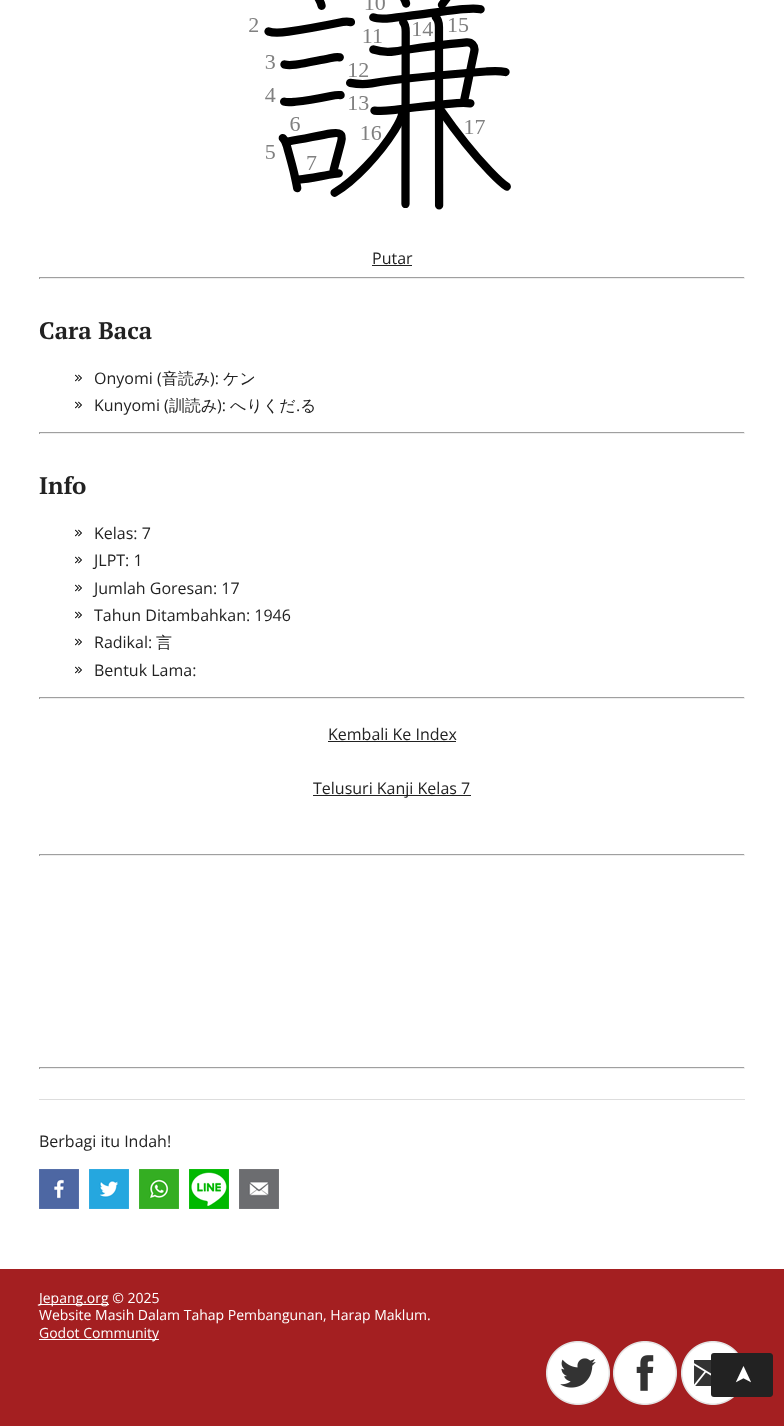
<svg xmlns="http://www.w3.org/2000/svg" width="784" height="1426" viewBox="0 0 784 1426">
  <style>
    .t1 { font: 16px Open Sans; fill: #222; }
    .t2 { font: bold 24px PT Serif; fill: #222; }
    .t3 { font: 500 16px WenQuanYi Zen Hei; fill: #222; }
    .t4 { font: 14px Open Sans; fill: #fff; }
    .t5 { font: 24px DejaVu Sans; fill: #fff; }
  </style>
  <rect width="100%" height="100%" fill="#fff"/>
  <image x="249" y="0" width="262" height="210" href="images/1.png"/>
  <text x="372" y="264" class="t1">Putar</text>
  <rect x="372" y="265" width="40" height="1" fill="#222"/>
  <rect x="39" y="277" width="706" height="1" fill="#9f9f9f"/>
  <rect x="744" y="277" width="1" height="2" fill="#eee"/>
  <rect x="39" y="278" width="706" height="1" fill="#eee"/>
  <rect x="39" y="277" width="1" height="2" fill="#9f9f9f"/>
  <text x="39" y="339" class="t2">Cara Baca</text>
  <image x="75" y="374" width="7" height="8" href="images/2.png"/>
  <text x="94" y="384" class="t1">Onyomi (</text>
  <text x="162" y="384" class="t3">音読み</text>
  <text x="210" y="384" class="t1">):</text>
  <text x="223" y="384" class="t3">ケン</text>
  <image x="75" y="401" width="7" height="8" href="images/2.png"/>
  <text x="94" y="411" class="t1">Kunyomi (</text>
  <text x="169" y="411" class="t3">訓読み</text>
  <text x="217" y="411" class="t1">):</text>
  <text x="230" y="411" class="t3">へりくだ</text>
  <text x="296" y="411" class="t1">.</text>
  <text x="300" y="411" class="t3">る</text>
  <rect x="39" y="432" width="706" height="1" fill="#9f9f9f"/>
  <rect x="744" y="432" width="1" height="2" fill="#eee"/>
  <rect x="39" y="433" width="706" height="1" fill="#eee"/>
  <rect x="39" y="432" width="1" height="2" fill="#9f9f9f"/>
  <text x="39" y="494" class="t2">Info</text>
  <image x="75" y="529" width="7" height="8" href="images/2.png"/>
  <text x="94" y="539" class="t1">Kelas: 7</text>
  <image x="75" y="556" width="7" height="8" href="images/2.png"/>
  <text x="94" y="566" class="t1">JLPT: 1</text>
  <image x="75" y="584" width="7" height="8" href="images/2.png"/>
  <text x="94" y="594" class="t1">Jumlah Goresan: 17</text>
  <image x="75" y="611" width="7" height="8" href="images/2.png"/>
  <text x="94" y="621" class="t1">Tahun Ditambahkan: 1946</text>
  <image x="75" y="638" width="7" height="8" href="images/2.png"/>
  <text x="94" y="648" class="t1">Radikal:</text>
  <text x="156" y="648" class="t3">言</text>
  <image x="75" y="666" width="7" height="8" href="images/2.png"/>
  <text x="94" y="676" class="t1">Bentuk Lama:</text>
  <rect x="39" y="697" width="706" height="1" fill="#9f9f9f"/>
  <rect x="744" y="697" width="1" height="2" fill="#eee"/>
  <rect x="39" y="698" width="706" height="1" fill="#eee"/>
  <rect x="39" y="697" width="1" height="2" fill="#9f9f9f"/>
  <text x="328" y="740" class="t1">Kembali Ke Index</text>
  <rect x="328" y="741" width="128" height="1" fill="#222"/>
  <rect x="313" y="795" width="158" height="1" fill="#222"/>
  <text x="313" y="794" class="t1">Telusuri Kanji Kelas 7</text>
  <rect x="39" y="854" width="706" height="1" fill="#9f9f9f"/>
  <rect x="744" y="854" width="1" height="2" fill="#eee"/>
  <rect x="39" y="855" width="706" height="1" fill="#eee"/>
  <rect x="39" y="854" width="1" height="2" fill="#9f9f9f"/>
  <rect x="39" y="1067" width="706" height="1" fill="#9f9f9f"/>
  <rect x="744" y="1067" width="1" height="2" fill="#eee"/>
  <rect x="39" y="1068" width="706" height="1" fill="#eee"/>
  <rect x="39" y="1067" width="1" height="2" fill="#9f9f9f"/>
  <rect x="39" y="1099" width="706" height="1" fill="#ddd"/>
  <text x="39" y="1147" class="t1">Berbagi itu Indah!</text>
  <image x="39" y="1169" width="40" height="40" href="images/3.png"/>
  <image x="89" y="1169" width="40" height="40" href="images/4.png"/>
  <image x="139" y="1169" width="40" height="40" href="images/5.png"/>
  <image x="189" y="1169" width="40" height="40" href="images/6.png"/>
  <image x="239" y="1169" width="40" height="40" href="images/7.png"/>
  <rect x="0" y="1269" width="784" height="157" fill="#a41f21"/>
  <rect x="39" y="1304" width="70" height="1" fill="#fff"/>
  <text x="39" y="1303" class="t4">Jepang.org © 2025</text>
  <text x="39" y="1320" class="t4">Website Masih Dalam Tahap Pembangunan, Harap Maklum.</text>
  <rect x="39" y="1339" width="120" height="1" fill="#fff"/>
  <text x="39" y="1338" class="t4">Godot Community</text>
  <image x="546" y="1341" width="64" height="64" href="images/8.png"/>
  <image x="613" y="1341" width="64" height="64" href="images/9.png"/>
  <image x="681" y="1341" width="57" height="64" href="images/10.png"/>
  <path d="M711 1394V1356C711 1354 712 1353 714 1353H770C771 1353 773 1354 773 1356V1394C773 1396 771 1397 770 1397H714C712 1397 711 1396 711 1394Z" fill="#222"/>
  <text x="751" y="1385" transform="rotate(-90 751 1385)" class="t5">➤</text>
</svg>
